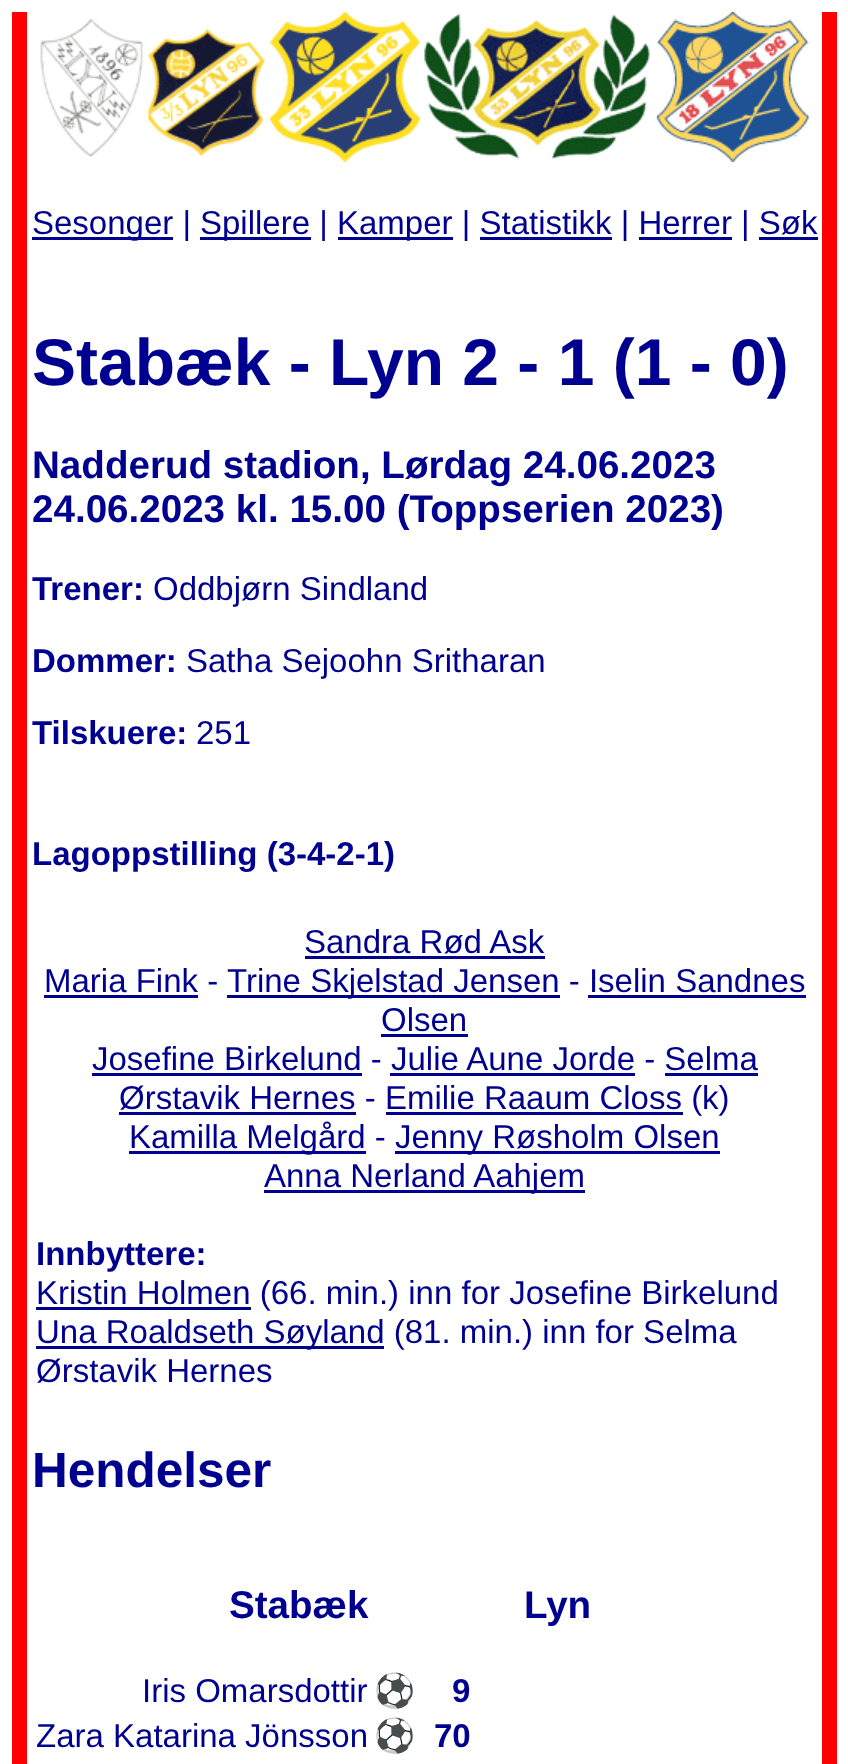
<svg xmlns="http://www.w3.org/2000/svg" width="848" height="1764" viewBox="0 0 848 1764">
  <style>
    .t1 { font: 33px Liberation Sans; fill: #000090; }
    .t2 { font: bold 66px Liberation Sans; fill: #000090; }
    .t3 { font: bold 38.6px Liberation Sans; fill: #000090; }
    .t4 { font: bold 33px Liberation Sans; fill: #000090; }
    .t5 { font: bold 49.5px Liberation Sans; fill: #000090; }
    .t6 { font: 33px Noto Color Emoji; fill: #000090; }
  </style>
  <rect width="100%" height="100%" fill="#fff"/>
  <rect x="822" y="12" width="15" height="1752" fill="#f00"/>
  <rect x="12" y="12" width="15" height="1752" fill="#f00"/>
  <image x="40" y="12" width="769" height="150" href="images/1.png"/>
  <rect x="32" y="237" width="141" height="3" fill="#000090"/>
  <text x="32" y="234" class="t1">Sesonger |</text>
  <rect x="200" y="237" width="111" height="3" fill="#000090"/>
  <text x="200" y="234" class="t1">Spillere |</text>
  <rect x="338" y="237" width="115" height="3" fill="#000090"/>
  <text x="337" y="234" class="t1">Kamper | Statistikk | Herrer | Søk</text>
  <rect x="480" y="237" width="132" height="3" fill="#000090"/>
  <rect x="639" y="237" width="93" height="3" fill="#000090"/>
  <rect x="759" y="237" width="59" height="3" fill="#000090"/>
  <text x="32" y="385" class="t2">Stabæk - Lyn 2 - 1 (1 - 0)</text>
  <text x="32" y="478" class="t3">Nadderud stadion, Lørdag 24.06.2023</text>
  <text x="32" y="522" class="t3">24.06.2023 kl. 15.00 (Toppserien 2023)</text>
  <text x="32" y="600" class="t4">Trener:</text>
  <text x="153" y="600" class="t1">Oddbjørn Sindland</text>
  <text x="32" y="672" class="t4">Dommer:</text>
  <text x="186" y="672" class="t1">Satha Sejoohn Sritharan</text>
  <text x="32" y="744" class="t4">Tilskuere:</text>
  <text x="196" y="744" class="t1">251</text>
  <text x="32" y="865" class="t4">Lagoppstilling (3-4-2-1)</text>
  <text x="304" y="953" class="t1">Sandra Rød Ask</text>
  <rect x="305" y="956" width="240" height="3" fill="#000090"/>
  <text x="44" y="992" class="t1">Maria Fink -</text>
  <rect x="44" y="995" width="154" height="3" fill="#000090"/>
  <rect x="227" y="995" width="333" height="3" fill="#000090"/>
  <text x="227" y="992" class="t1">Trine Skjelstad Jensen - Iselin Sandnes</text>
  <text x="381" y="1031" class="t1">Olsen</text>
  <rect x="588" y="995" width="218" height="3" fill="#000090"/>
  <rect x="381" y="1034" width="87" height="3" fill="#000090"/>
  <text x="92" y="1070" class="t1">Josefine Birkelund - Julie Aune Jorde - Selma</text>
  <rect x="92" y="1073" width="270" height="3" fill="#000090"/>
  <rect x="390" y="1073" width="245" height="3" fill="#000090"/>
  <rect x="119" y="1112" width="237" height="3" fill="#000090"/>
  <text x="119" y="1109" class="t1">Ørstavik Hernes - Emilie Raaum Closs (k)</text>
  <rect x="665" y="1073" width="93" height="3" fill="#000090"/>
  <rect x="386" y="1112" width="297" height="3" fill="#000090"/>
  <rect x="129" y="1151" width="237" height="3" fill="#000090"/>
  <text x="129" y="1148" class="t1">Kamilla Melgård -</text>
  <rect x="395" y="1151" width="325" height="3" fill="#000090"/>
  <text x="395" y="1148" class="t1">Jenny Røsholm Olsen</text>
  <rect x="264" y="1190" width="321" height="3" fill="#000090"/>
  <text x="264" y="1187" class="t1">Anna Nerland Aahjem</text>
  <text x="36" y="1265" class="t4">Innbyttere:</text>
  <rect x="36" y="1307" width="215" height="3" fill="#000090"/>
  <text x="36" y="1304" class="t1">Kristin Holmen (66. min.) inn for Josefine Birkelund</text>
  <rect x="36" y="1346" width="348" height="3" fill="#000090"/>
  <text x="36" y="1343" class="t1">Una Roaldseth Søyland (81. min.) inn for Selma</text>
  <text x="36" y="1382" class="t1">Ørstavik Hernes</text>
  <text x="32" y="1487" class="t5">Hendelser</text>
  <text x="229" y="1618" class="t3">Stabæk</text>
  <text x="524" y="1618" class="t3">Lyn</text>
  <text x="142" y="1702" class="t1">Iris Omarsdottir</text>
  <text x="374" y="1702" class="t6">⚽</text>
  <text x="452" y="1702" class="t4">9</text>
  <text x="36" y="1747" class="t1">Zara Katarina Jönsson</text>
  <text x="374" y="1747" class="t6">⚽</text>
  <text x="434" y="1747" class="t4">70</text>
</svg>
